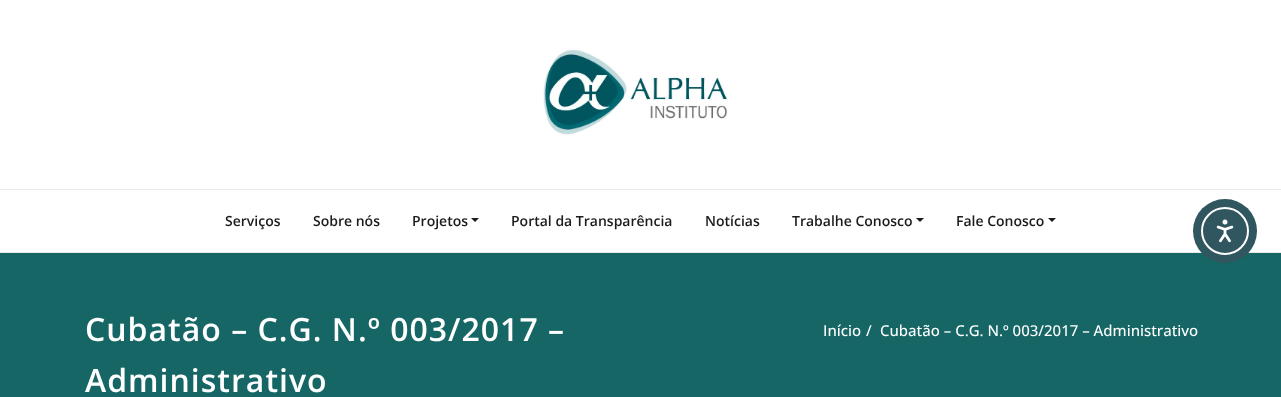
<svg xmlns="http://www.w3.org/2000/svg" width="1281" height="397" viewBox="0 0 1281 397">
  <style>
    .t1 { font: 600 14px Open Sans; fill: #1b1b1b; }
    .t2 { font: 600 32px Open Sans; letter-spacing: 1px; fill: #fff; }
    .t3 { font: 500 15px Open Sans; fill: #fff; }
  </style>
  <rect width="100%" height="100%" fill="#166666"/>
  <rect x="0" y="0" width="1281" height="252" fill="#fff"/>
  <image x="543" y="49" width="185" height="86" href="images/1.png"/>
  <rect x="0" y="189" width="1281" height="1" fill="#e9e9e9"/>
  <rect x="0" y="252" width="1281" height="1" fill="#e9e9e9"/>
  <text x="225" y="226" class="t1">Serviços</text>
  <text x="313" y="226" class="t1">Sobre nós</text>
  <text x="412" y="226" class="t1">Projetos</text>
  <path d="M471 218H479L475 222Z" fill="#1b1b1b"/>
  <text x="511" y="226" class="t1">Portal da Transparência</text>
  <text x="705" y="226" class="t1">Notícias</text>
  <text x="792" y="226" class="t1">Trabalhe Conosco</text>
  <path d="M916 218H924L920 222Z" fill="#1b1b1b"/>
  <text x="956" y="226" class="t1">Fale Conosco</text>
  <path d="M1048 218H1056L1052 222Z" fill="#1b1b1b"/>
  <text x="85" y="341" class="t2">Cubatão – C.G. N.º 003/2017 –</text>
  <text x="85" y="392" class="t2">Administrativo</text>
  <text x="823" y="336" class="t3">Início</text>
  <text x="866" y="336" class="t3">/</text>
  <text x="880" y="336" class="t3">Cubatão – C.G. N.º 003/2017 – Administrativo</text>
  <circle cx="1225" cy="231" r="32" fill="#30565f"/>
  <circle cx="1225" cy="231" r="23" fill="none" stroke="#fff" stroke-width="2"/>
  <image x="1216" y="219" width="18" height="24" href="images/2.png"/>
</svg>
